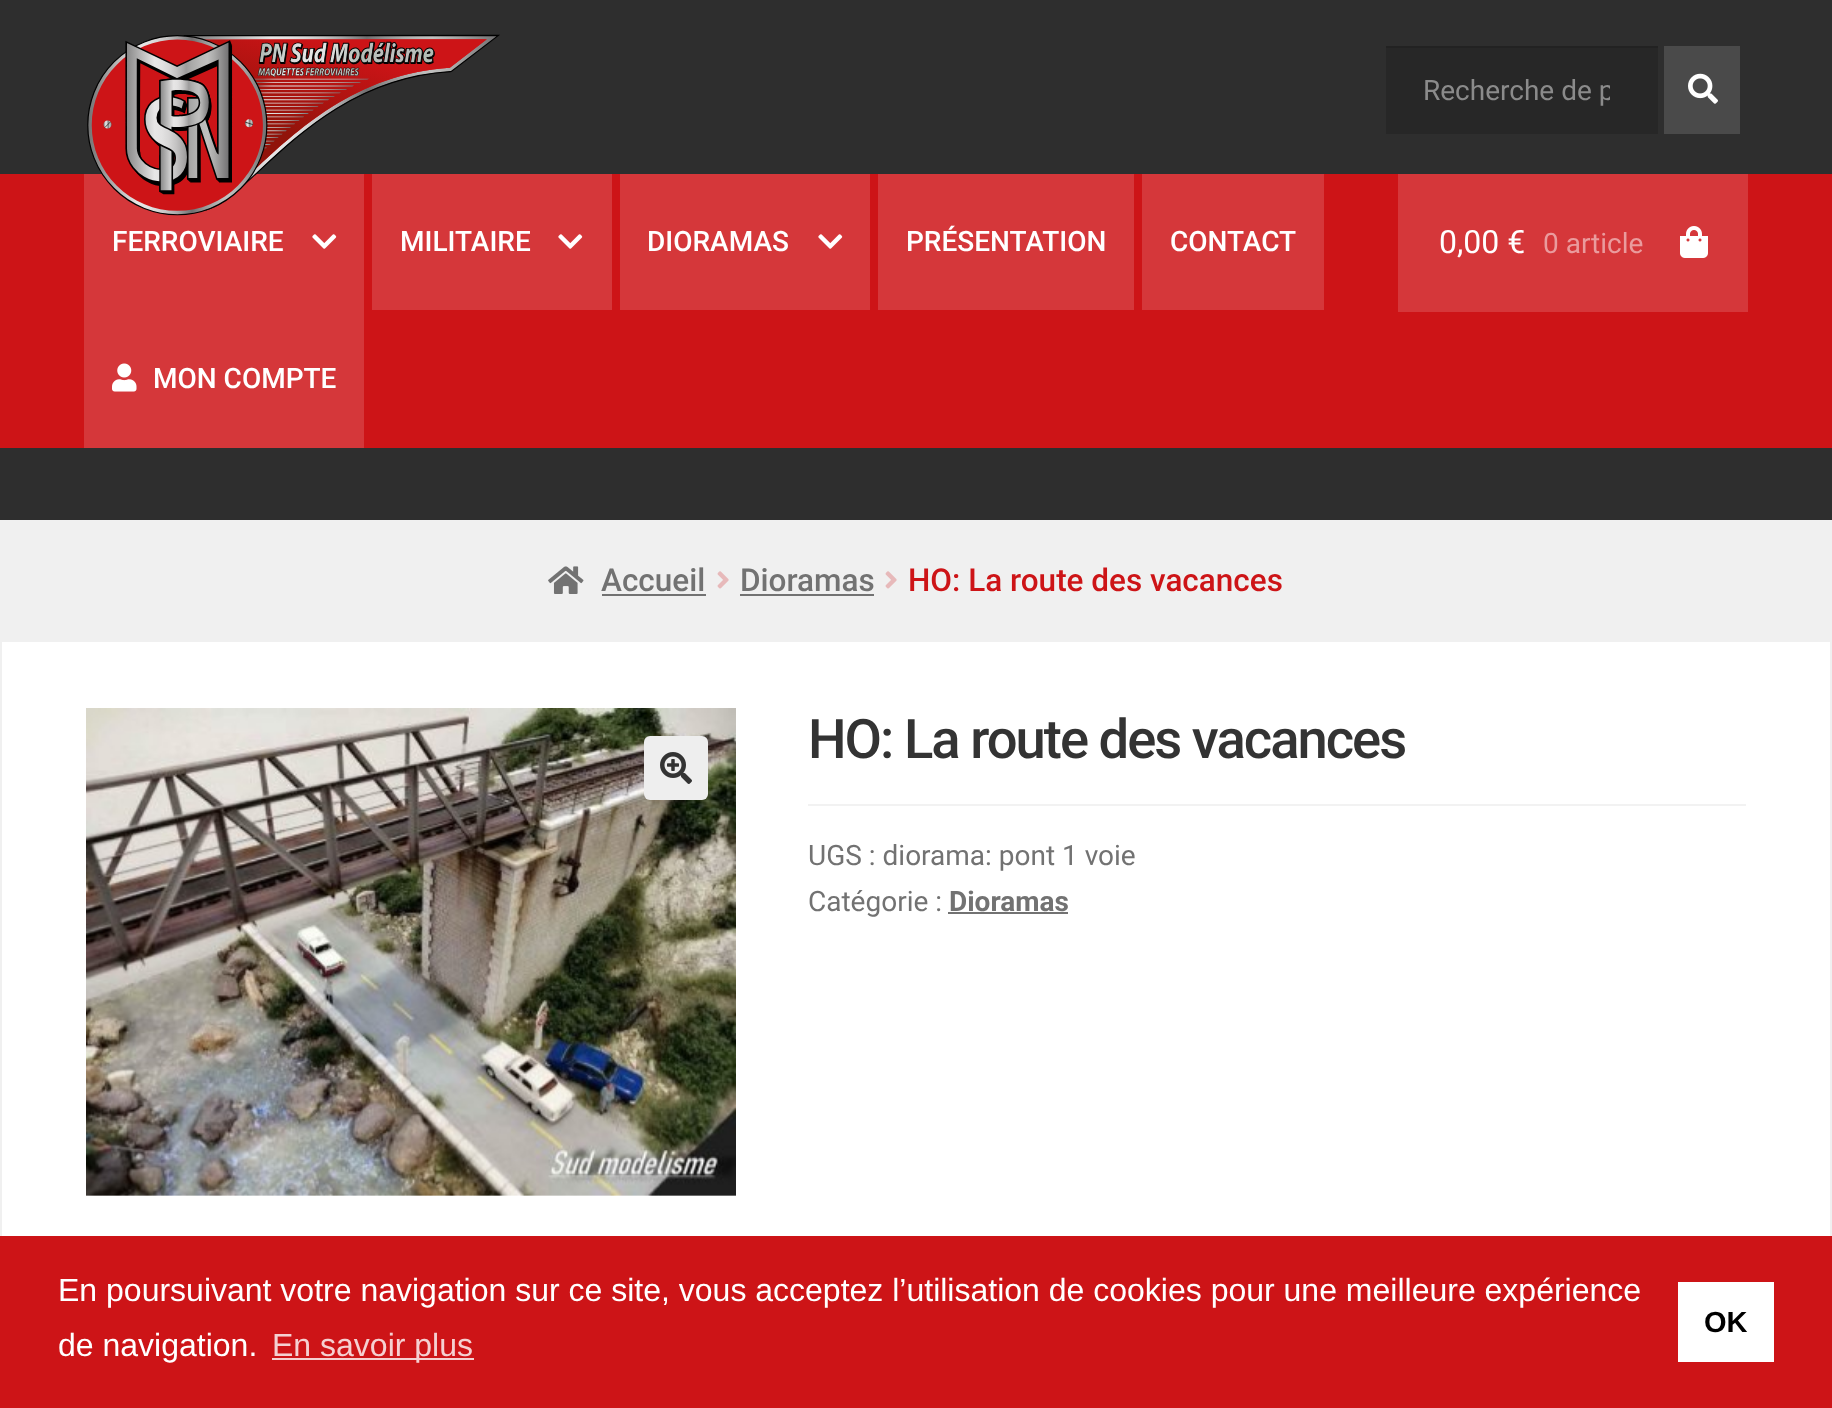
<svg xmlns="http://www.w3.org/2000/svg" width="1832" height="1408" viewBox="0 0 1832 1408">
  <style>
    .t1 { font: 28px Roboto; fill: #8b8b8b; }
    .t2 { font: 500 28px Roboto; fill: #fff; }
    .t3 { font: 32px Roboto; fill: #fff; }
    .t4 { font: 28px Roboto; fill: #ea9b9d; }
    .t5 { font: 500 31.5px Roboto; fill: #727272; }
    .t6 { font: 500 31.5px Roboto; fill: #cd1417; }
    .t7 { font: 500 54.4px Roboto; letter-spacing: -2px; fill: #333; }
    .t8 { font: 28px Roboto; fill: #727272; }
    .t9 { font: bold 28px Roboto; fill: #727272; }
    .t10 { font: 32px Liberation Sans; fill: #fff; }
    .t11 { font: 32px Liberation Sans; fill: #f5d0d1; }
    .t12 { font: bold 29px Liberation Sans; fill: #000; }
  </style>
  <defs>
    <clipPath id="clip1"><rect x="1422" y="74" width="188" height="32"/></clipPath>
  </defs>
  <rect width="100%" height="100%" fill="#f0f0f0"/>
  <rect x="0" y="0" width="1832" height="174" fill="#2e2e2e"/>
  <rect x="0" y="174" width="1832" height="274" fill="#cd1417"/>
  <rect x="84" y="174" width="280" height="274" fill="#d5373a"/>
  <rect x="372" y="174" width="240" height="136" fill="#d5373a"/>
  <image x="87" y="34" width="413" height="182" href="images/1.png"/>
  <rect x="1386" y="48" width="272" height="86" fill="#272727"/>
  <rect x="1386" y="46" width="272" height="2" fill="#222"/>
  <g clip-path="url(#clip1)">
    <text x="1423" y="100" class="t1">Recherche de p</text>
  </g>
  <rect x="1664" y="46" width="76" height="88" fill="#4a4a4a"/>
  <image x="1688" y="73" width="30" height="31" href="images/2.png"/>
  <text x="112" y="251" class="t2">FERROVIAIRE</text>
  <image x="312" y="234" width="25" height="15" href="images/3.png"/>
  <text x="400" y="251" class="t2">MILITAIRE</text>
  <image x="558" y="234" width="25" height="15" href="images/3.png"/>
  <rect x="620" y="174" width="250" height="136" fill="#d5373a"/>
  <text x="647" y="251" class="t2">DIORAMAS</text>
  <image x="818" y="234" width="25" height="15" href="images/3.png"/>
  <rect x="878" y="174" width="256" height="136" fill="#d5373a"/>
  <text x="906" y="251" class="t2">PRÉSENTATION</text>
  <rect x="1142" y="174" width="182" height="136" fill="#d5373a"/>
  <text x="1170" y="251" class="t2">CONTACT</text>
  <image x="112" y="363" width="25" height="29" href="images/4.png"/>
  <text x="153" y="388" class="t2">MON COMPTE</text>
  <rect x="1398" y="174" width="350" height="138" fill="#d5373a"/>
  <text x="1439" y="253" class="t3">0,00 €</text>
  <text x="1543" y="253" class="t4">0 article</text>
  <image x="1680" y="226" width="28" height="32" href="images/5.png"/>
  <rect x="0" y="448" width="1832" height="72" fill="#2e2e2e"/>
  <image x="548" y="566" width="36" height="28" href="images/6.png"/>
  <text x="601" y="591" class="t5">Accueil</text>
  <rect x="602" y="594" width="104" height="2" fill="#727272"/>
  <image x="717" y="571" width="12" height="18" href="images/7.png"/>
  <text x="740" y="591" class="t5">Dioramas</text>
  <rect x="740" y="594" width="134" height="2" fill="#727272"/>
  <image x="885" y="571" width="12" height="18" href="images/7.png"/>
  <text x="908" y="591" class="t6">HO: La route des vacances</text>
  <rect x="2" y="642" width="1828" height="594" fill="#fff"/>
  <image x="86" y="708" width="650" height="488" href="images/8.png"/>
  <rect x="644" y="736" width="64" height="64" rx="6" fill="#eee"/>
  <image x="660" y="752" width="32" height="32" href="images/9.png"/>
  <text x="808" y="758" class="t7">HO: La route des vacances</text>
  <rect x="808" y="804" width="938" height="2" fill="#f2f2f2"/>
  <text x="808" y="865" class="t8">UGS : diorama: pont 1 voie</text>
  <text x="808" y="911" class="t8">Catégorie :</text>
  <text x="949" y="911" class="t9">Dioramas</text>
  <rect x="948" y="912" width="120" height="2" fill="#727272"/>
  <rect x="0" y="1236" width="1832" height="172" fill="#cd1417"/>
  <text x="58" y="1301" class="t10">En poursuivant votre navigation sur ce site, vous acceptez l’utilisation de cookies pour une meilleure expérience</text>
  <text x="58" y="1356" class="t10">de navigation.</text>
  <rect x="272" y="1358" width="202" height="2" fill="#f5d0d1"/>
  <text x="272" y="1356" class="t11">En savoir plus</text>
  <rect x="1678" y="1282" width="96" height="80" fill="#fff"/>
  <text x="1704" y="1332" class="t12">OK</text>
</svg>
